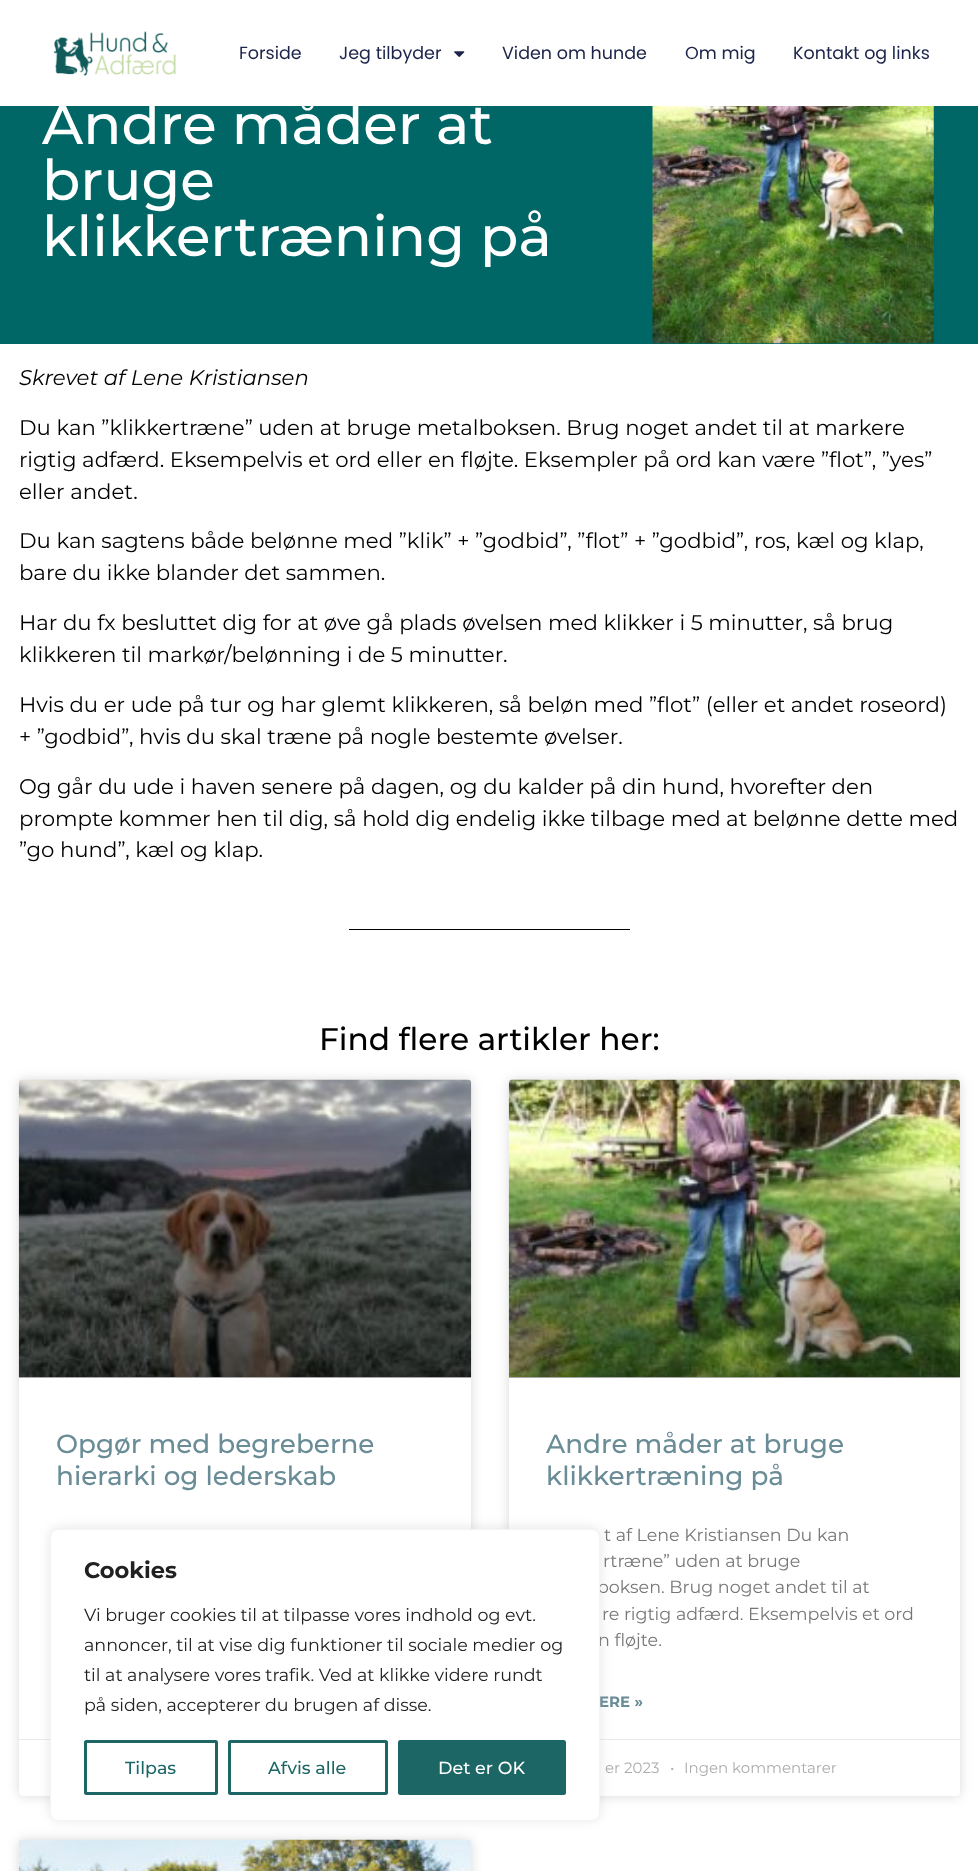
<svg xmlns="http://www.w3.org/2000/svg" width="978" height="1871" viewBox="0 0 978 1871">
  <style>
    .t1 { font: 17.5px Poppins; fill: #1c244b; }
    .t2 { font: 500 56.25px Montserrat; fill: #fff; }
    .t3 { font: italic 21.25px Montserrat; fill: #000; }
    .t4 { font: 21.25px Montserrat; fill: #000; }
    .t5 { font: 500 31.25px Montserrat; fill: #000; }
    .t6 { font: 500 26.25px Montserrat; fill: #698c96; }
    .t7 { font: 17.5px Montserrat; fill: #777; }
    .t8 { font: bold 15px Montserrat; fill: #698c96; }
    .t9 { font: 15px Montserrat; fill: #adadad; }
    .t10 { font: bold 22.5px Montserrat; fill: #212121; }
    .t11 { font: 17.5px Montserrat; fill: #212121; }
    .t12 { font: 500 17.5px Montserrat; fill: #1d6666; }
    .t13 { font: 500 17.5px Montserrat; fill: #fff; }
  </style>
  <defs>
    <clipPath id="clip1"><path d="M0 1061H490V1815H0ZM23 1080H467C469 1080 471 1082 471 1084V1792C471 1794 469 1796 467 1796H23C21 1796 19 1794 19 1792V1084C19 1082 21 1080 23 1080Z" clip-rule="evenodd"/></clipPath>
    <linearGradient id="g1" gradientUnits="userSpaceOnUse" x1="245" y1="1378" x2="245" y2="1080"><stop offset="0" stop-color="#000" stop-opacity="0.35"/><stop offset="0.75" stop-color="#000" stop-opacity="0"/></linearGradient>
    <linearGradient id="g2" gradientUnits="userSpaceOnUse" x1="734" y1="1378" x2="734" y2="1080"><stop offset="0" stop-color="#000" stop-opacity="0.35"/><stop offset="0.75" stop-color="#000" stop-opacity="0"/></linearGradient>
  </defs>
  <rect width="100%" height="100%" fill="#fff"/>
  <image x="53" y="31" width="123" height="45" href="images/1.png"/>
  <text x="239" y="59" class="t1">Forside</text>
  <text x="339" y="59" class="t1">Jeg tilbyder</text>
  <image x="454" y="51" width="11" height="6" href="images/2.png"/>
  <text x="502" y="59" class="t1">Viden om hunde</text>
  <text x="685" y="59" class="t1">Om mig</text>
  <text x="793" y="59" class="t1">Kontakt og links</text>
  <rect x="0" y="106" width="978" height="238" fill="#066"/>
  <text x="42" y="144" class="t2">Andre måder at</text>
  <text x="42" y="200" class="t2">bruge</text>
  <text x="42" y="256" class="t2">klikkertræning på</text>
  <image x="652" y="106" width="282" height="238" href="images/3.png"/>
  <text x="19" y="385" class="t3">Skrevet af Lene Kristiansen</text>
  <text x="19" y="435" class="t4">Du kan ”klikkertræne” uden at bruge metalboksen. Brug noget andet til at markere</text>
  <text x="19" y="467" class="t4">rigtig adfærd. Eksempelvis et ord eller en fløjte. Eksempler på ord kan være ”flot”, ”yes”</text>
  <text x="19" y="499" class="t4">eller andet.</text>
  <text x="19" y="548" class="t4">Du kan sagtens både belønne med ”klik” + ”godbid”, ”flot” + ”godbid”, ros, kæl og klap,</text>
  <text x="19" y="580" class="t4">bare du ikke blander det sammen.</text>
  <text x="19" y="630" class="t4">Har du fx besluttet dig for at øve gå plads øvelsen med klikker i 5 minutter, så brug</text>
  <text x="19" y="662" class="t4">klikkeren til markør/belønning i de 5 minutter.</text>
  <text x="19" y="712" class="t4">Hvis du er ude på tur og har glemt klikkeren, så beløn med ”flot” (eller et andet roseord)</text>
  <text x="19" y="744" class="t4">+ ”godbid”, hvis du skal træne på nogle bestemte øvelser.</text>
  <text x="19" y="794" class="t4">Og går du ude i haven senere på dagen, og du kalder på din hund, hvorefter den</text>
  <text x="19" y="826" class="t4">prompte kommer hen til dig, så hold dig endelig ikke tilbage med at belønne dette med</text>
  <text x="19" y="857" class="t4">”go hund”, kæl og klap.</text>
  <rect x="349" y="929" width="281" height="1" fill="#000"/>
  <text x="319" y="1050" class="t5">Find flere artikler her:</text>
  <g clip-path="url(#clip1)">
    <rect x="19" y="1080" width="452" height="716" rx="4" fill="#00000026" filter="blur(6px)"/>
  </g>
  <image x="18" y="1079" width="454" height="298" href="images/4.png"/>
  <rect x="19" y="1168" width="452" height="210" fill="url(#g1)"/>
  <text x="56" y="1453" class="t6">Opgør med begreberne</text>
  <text x="56" y="1485" class="t6">hierarki og lederskab</text>
  <rect x="19" y="1739" width="31" height="1" fill="#eaeaea"/>
  <rect x="509" y="1080" width="451" height="716" rx="4" fill="#00000026" filter="blur(6px)"/>
  <rect x="509" y="1080" width="451" height="716" rx="4" fill="#fff"/>
  <image x="508" y="1079" width="452" height="298" href="images/5.png"/>
  <rect x="509" y="1168" width="451" height="210" fill="url(#g2)"/>
  <text x="546" y="1453" class="t6">Andre måder at bruge</text>
  <text x="546" y="1485" class="t6">klikkertræning på</text>
  <text x="604" y="1541" class="t7">t af Lene Kristiansen Du kan</text>
  <text x="603" y="1567" class="t7">rtræne” uden at bruge</text>
  <text x="597" y="1593" class="t7">boksen. Brug noget andet til at</text>
  <text x="602" y="1620" class="t7">re rigtig adfærd. Eksempelvis et ord</text>
  <text x="598" y="1646" class="t7">n fløjte.</text>
  <text x="599" y="1707" class="t8">ERE »</text>
  <rect x="600" y="1739" width="360" height="1" fill="#eaeaea"/>
  <text x="605" y="1773" class="t9">er 2023</text>
  <text x="670" y="1773" class="t9">•</text>
  <text x="684" y="1773" class="t9">Ingen kommentarer</text>
  <rect x="19" y="1840" width="452" height="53" rx="4" fill="#00000026" filter="blur(6px)"/>
  <image x="18" y="1839" width="453" height="32" href="images/6.png"/>
  <rect x="50" y="1528" width="550" height="292" rx="8" fill="#acabab4d" filter="blur(6px)"/>
  <rect x="50.5" y="1529.5" width="549" height="291" rx="7.5" fill="#fff" stroke="#f4f4f4"/>
  <text x="84" y="1578" class="t10">Cookies</text>
  <text x="84" y="1621" class="t11">Vi bruger cookies til at tilpasse vores indhold og evt.</text>
  <text x="84" y="1651" class="t11">annoncer, til at vise dig funktioner til sociale medier og</text>
  <text x="84" y="1681" class="t11">til at analysere vores trafik. Ved at klikke videre rundt</text>
  <text x="84" y="1711" class="t11">på siden, accepterer du brugen af disse.</text>
  <rect x="85.5" y="1741.5" width="131" height="52" rx="1" fill="none" stroke="#1d6666" stroke-width="3"/>
  <text x="125" y="1774" class="t12">Tilpas</text>
  <rect x="229.5" y="1741.5" width="157" height="52" rx="1" fill="none" stroke="#1d6666" stroke-width="3"/>
  <text x="268" y="1774" class="t12">Afvis alle</text>
  <rect x="399.5" y="1741.5" width="165" height="52" rx="1" fill="#1d6666" stroke="#1d6666" stroke-width="3"/>
  <text x="438" y="1774" class="t13">Det er OK</text>
</svg>
